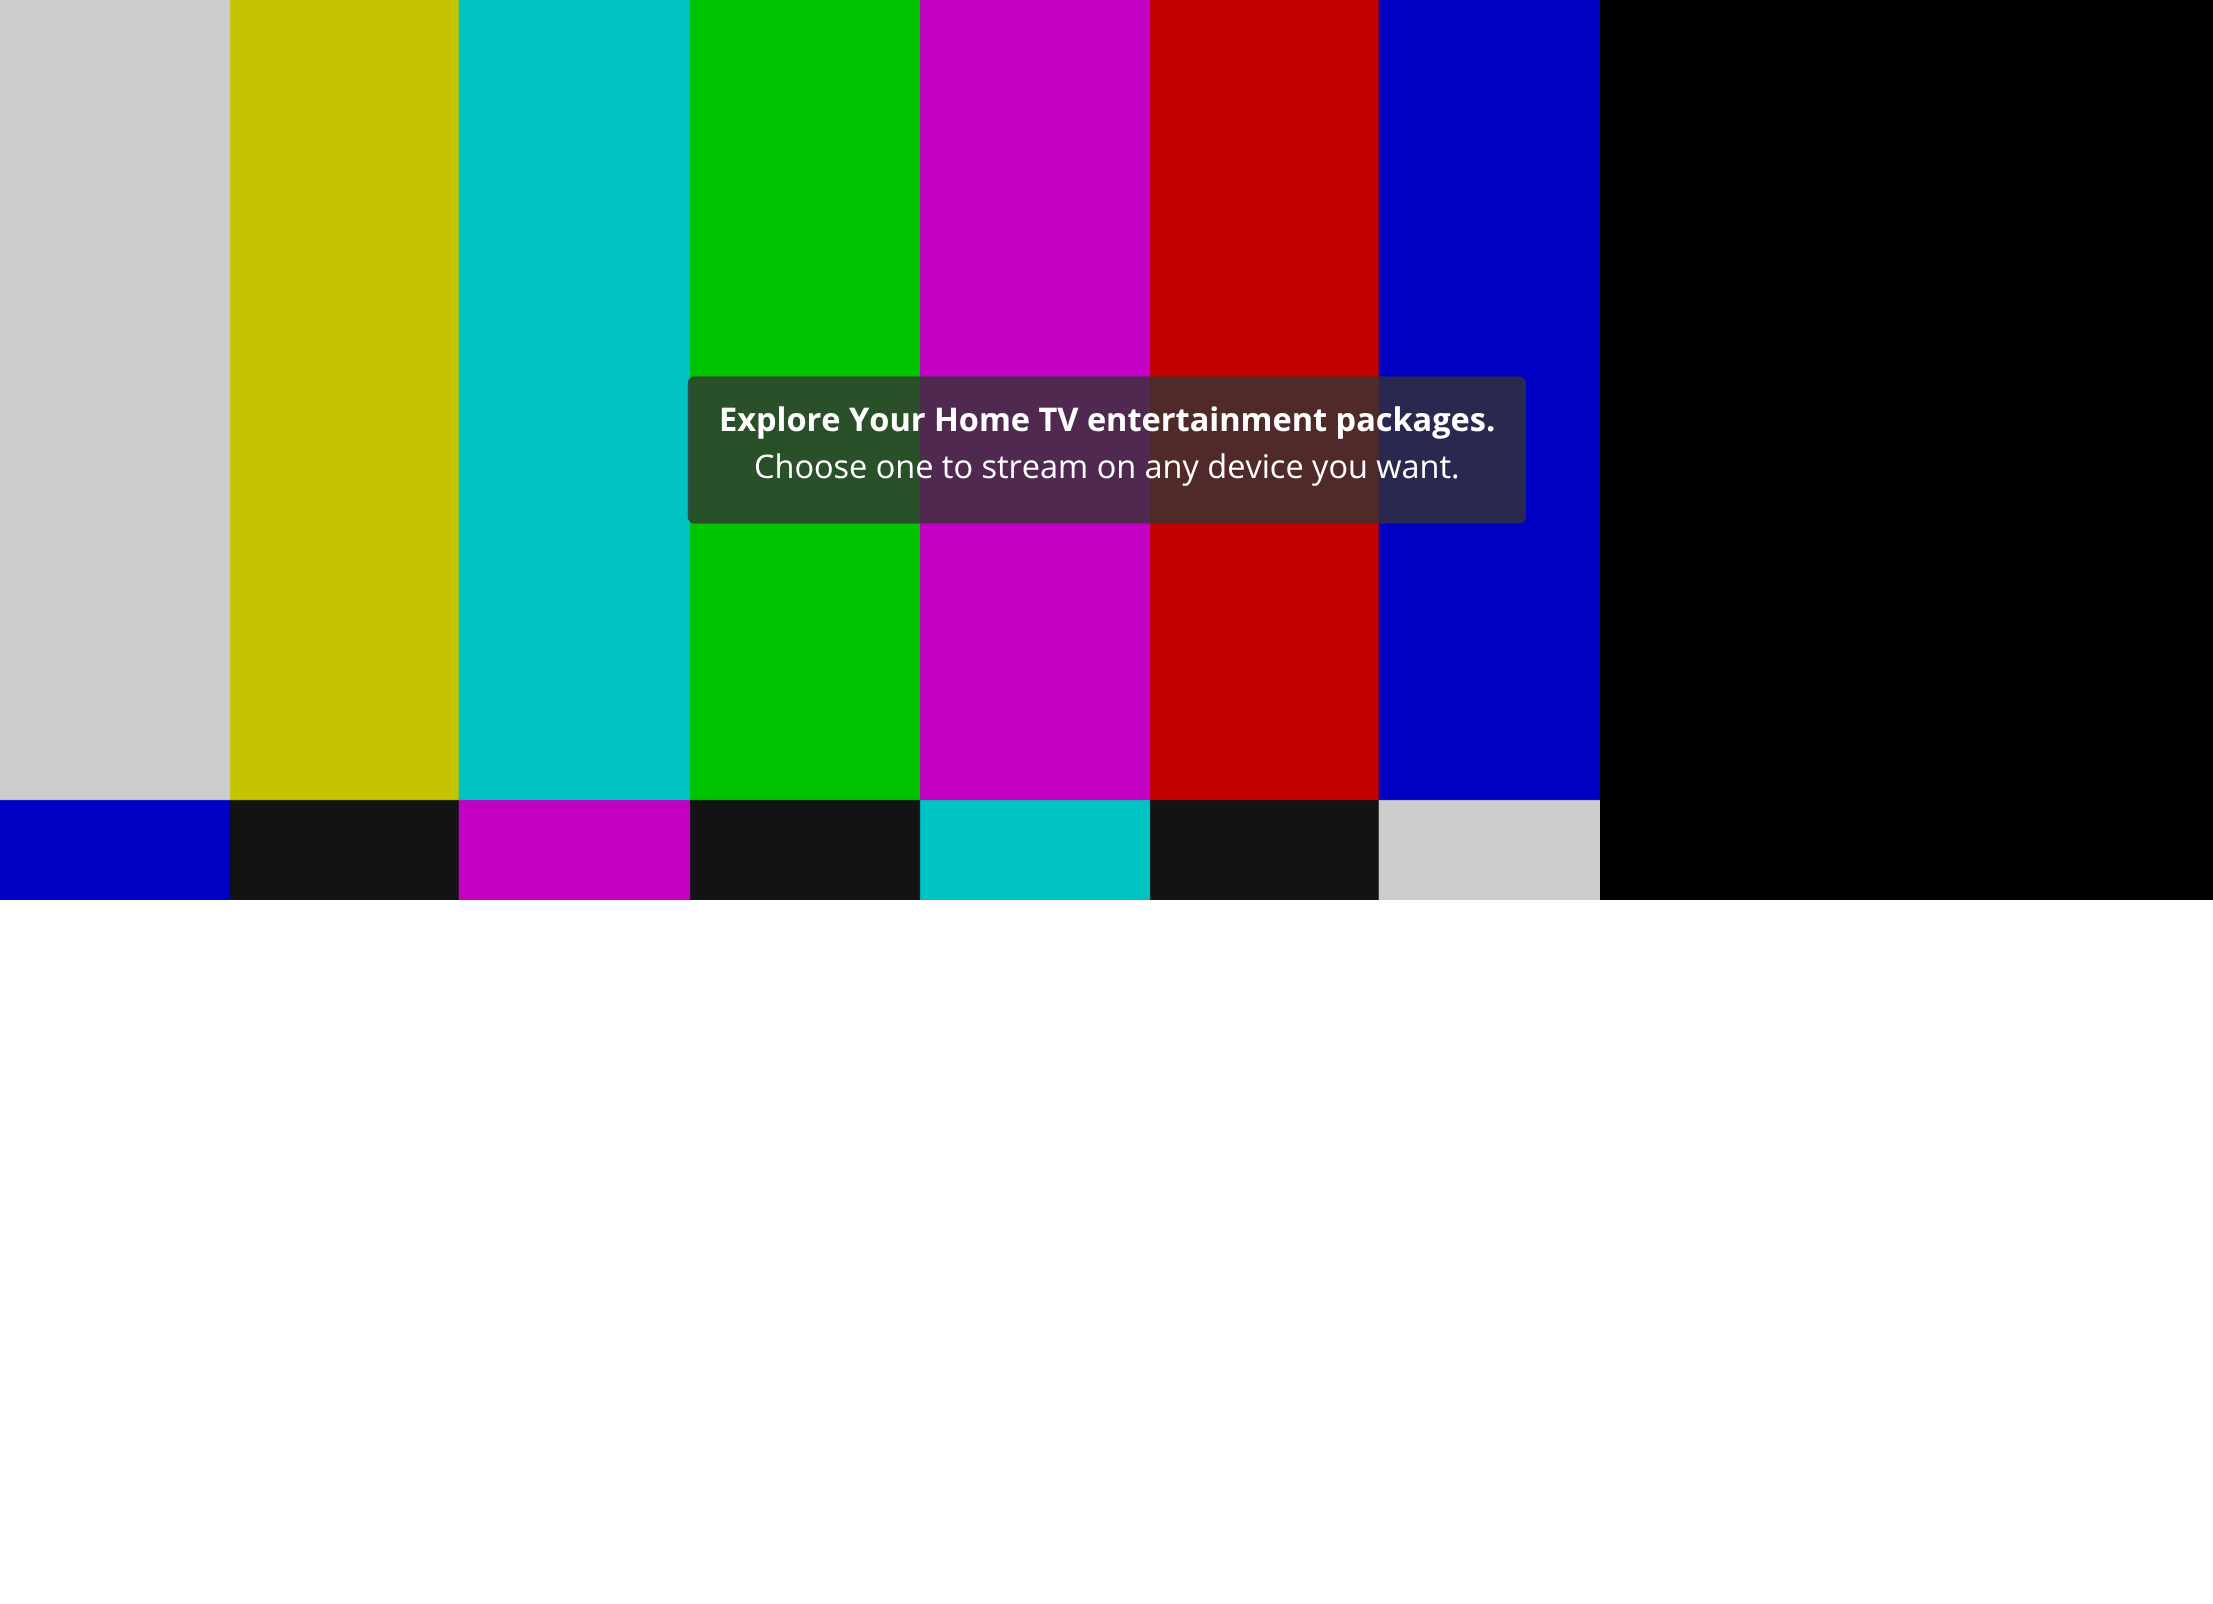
<svg xmlns="http://www.w3.org/2000/svg" width="2213" height="1604" viewBox="0 0 2213 1604">
  <style>
    .t1 { font: bold 32.5px Open Sans; fill: #fff; }
    .t2 { font: 32.5px Open Sans; fill: #fff; }
  </style>
  <rect width="100%" height="100%" fill="#fff"/>
  <rect x="1600" y="0" width="613" height="900" fill="#000"/>
  <image x="0" y="0" width="1600" height="900" href="images/1.png"/>
  <image x="687" y="376" width="840" height="148" href="images/2.png"/>
  <text x="719" y="431" class="t1">Explore Your Home TV entertainment packages.</text>
  <text x="754" y="478" class="t2">Choose one to stream on any device you want.</text>
</svg>
